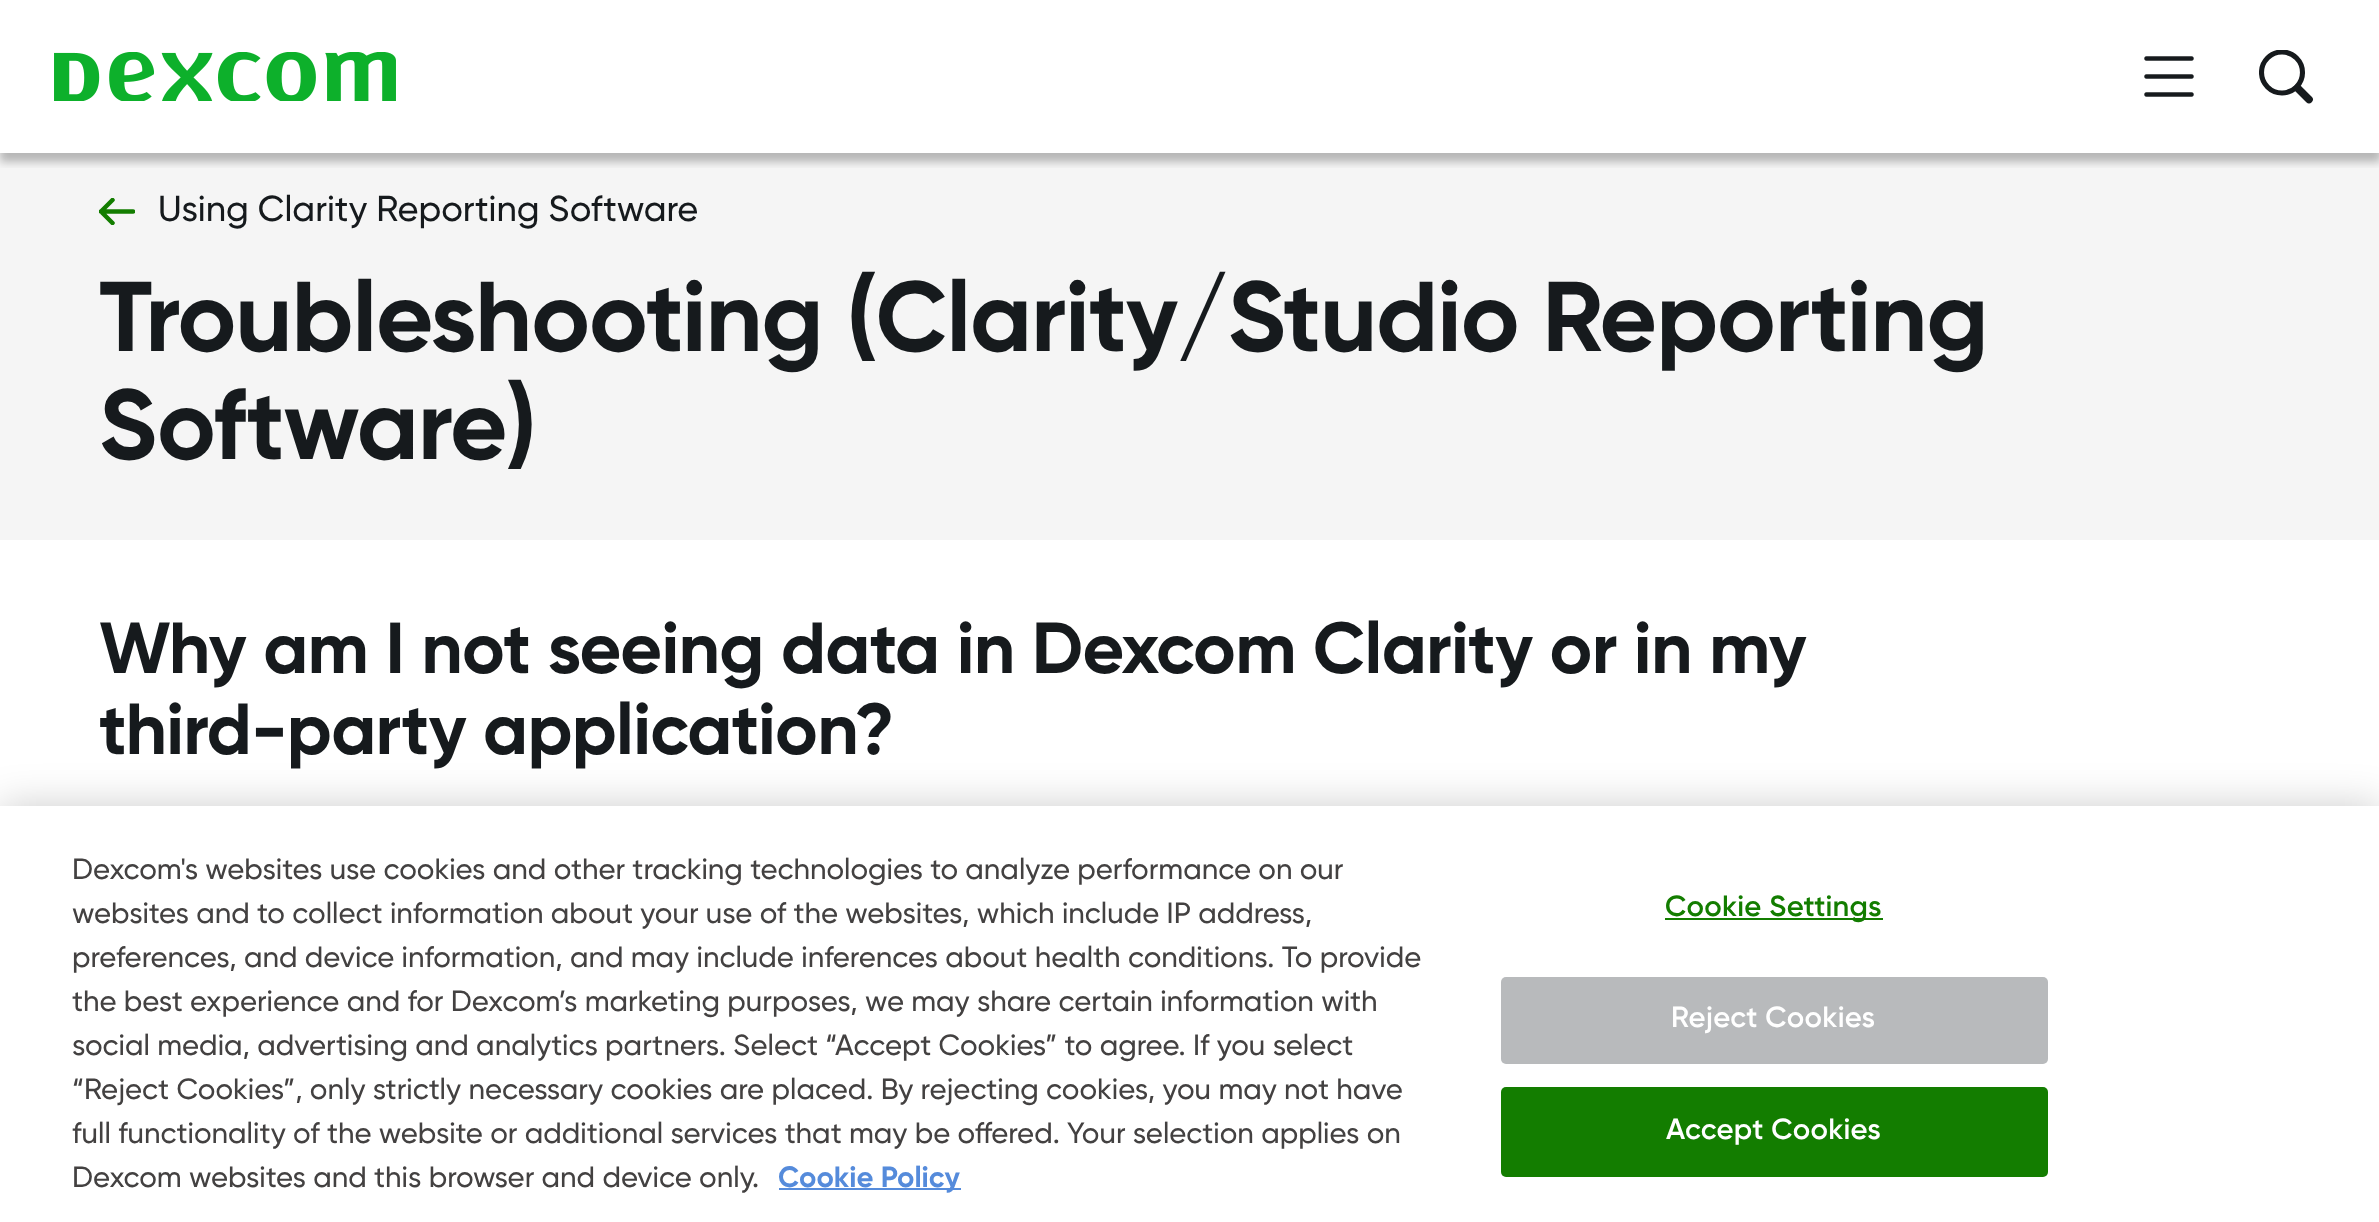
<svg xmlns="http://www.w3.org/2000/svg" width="2379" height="1222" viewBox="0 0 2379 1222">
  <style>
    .t1 { font: 500 36px Gilroy; fill: #161a1d; }
    .t2 { font: bold 99px Gilroy; letter-spacing: -1px; fill: #161a1d; }
    .t3 { font: bold 72px Gilroy; letter-spacing: -0.72px; fill: #161a1d; }
    .t4 { font: 500 29.25px Gilroy; fill: #434141; }
    .t5 { font: bold 29.25px Gilroy; fill: #558bdb; }
    .t6 { font: 600 29.25px Gilroy; letter-spacing: 0.25px; fill: #137d00; }
    .t7 { font: 600 29.25px Gilroy; letter-spacing: 0.25px; fill: #fff; }
  </style>
  <defs>
    <clipPath id="clip1"><rect x="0" y="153" width="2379" height="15"/></clipPath>
    <clipPath id="clip2"><rect x="2259" y="50" width="54" height="54"/></clipPath>
    <clipPath id="clip3"><rect x="99" y="198" width="36" height="27"/></clipPath>
  </defs>
  <rect width="100%" height="100%" fill="#fff"/>
  <rect x="0" y="153" width="2379" height="387" fill="#f5f5f5"/>
  <g clip-path="url(#clip1)">
    <rect x="0" y="9" width="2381" height="153" fill="#00000040" filter="blur(4.5px)"/>
  </g>
  <image x="54" y="52" width="342" height="49" href="images/1.png"/>
  <image x="2144" y="56" width="50" height="41" href="images/2.png"/>
  <g clip-path="url(#clip2)">
    <circle cx="2282" cy="72.5" r="20.5" fill="none" stroke="#161a1d" stroke-width="5.1"/>
  </g>
  <path d="M2297.5 88L2309 99.5" fill="none" stroke="#161a1d" stroke-width="7.7" stroke-linecap="round"/>
  <g clip-path="url(#clip3)">
    <path d="M112.5 200L101 211.5L112.5 223M101 211.5H133" fill="none" stroke="#137d00" stroke-width="4.5" stroke-linecap="round" stroke-linejoin="round"/>
  </g>
  <text x="158" y="221" class="t1">Using Clarity Reporting Software</text>
  <text x="99" y="351" class="t2">Troubleshooting (Clarity/Studio Reporting</text>
  <text x="99" y="459" class="t2">Software)</text>
  <text x="99" y="673" class="t3">Why am I not seeing data in Dexcom Clarity or in my</text>
  <text x="99" y="754" class="t3">third-party application?</text>
  <rect x="0" y="806" width="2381" height="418" fill="#00000033" filter="blur(20px)"/>
  <rect x="0" y="806" width="2379" height="416" fill="#fff"/>
  <text x="72" y="879" class="t4">Dexcom's websites use cookies and other tracking technologies to analyze performance on our</text>
  <text x="72" y="923" class="t4">websites and to collect information about your use of the websites, which include IP address,</text>
  <text x="72" y="967" class="t4">preferences, and device information, and may include inferences about health conditions. To provide</text>
  <text x="72" y="1011" class="t4">the best experience and for Dexcom’s marketing purposes, we may share certain information with</text>
  <text x="72" y="1055" class="t4">social media, advertising and analytics partners. Select “Accept Cookies” to agree. If you select</text>
  <text x="72" y="1099" class="t4">“Reject Cookies”, only strictly necessary cookies are placed. By rejecting cookies, you may not have</text>
  <text x="72" y="1143" class="t4">full functionality of the website or additional services that may be offered. Your selection applies on</text>
  <text x="72" y="1187" class="t4">Dexcom websites and this browser and device only.</text>
  <rect x="779" y="1188" width="182" height="2" fill="#558bdb"/>
  <text x="778" y="1187" class="t5">Cookie Policy</text>
  <rect x="1665" y="918" width="218" height="2" fill="#137d00"/>
  <text x="1665" y="916" class="t6">Cookie Settings</text>
  <rect x="1501" y="977" width="547" height="87" rx="5" fill="#b8babc"/>
  <text x="1671" y="1027" class="t7">Reject Cookies</text>
  <rect x="1501" y="1087" width="547" height="90" rx="5" fill="#137d00"/>
  <text x="1666" y="1139" class="t7">Accept Cookies</text>
</svg>
